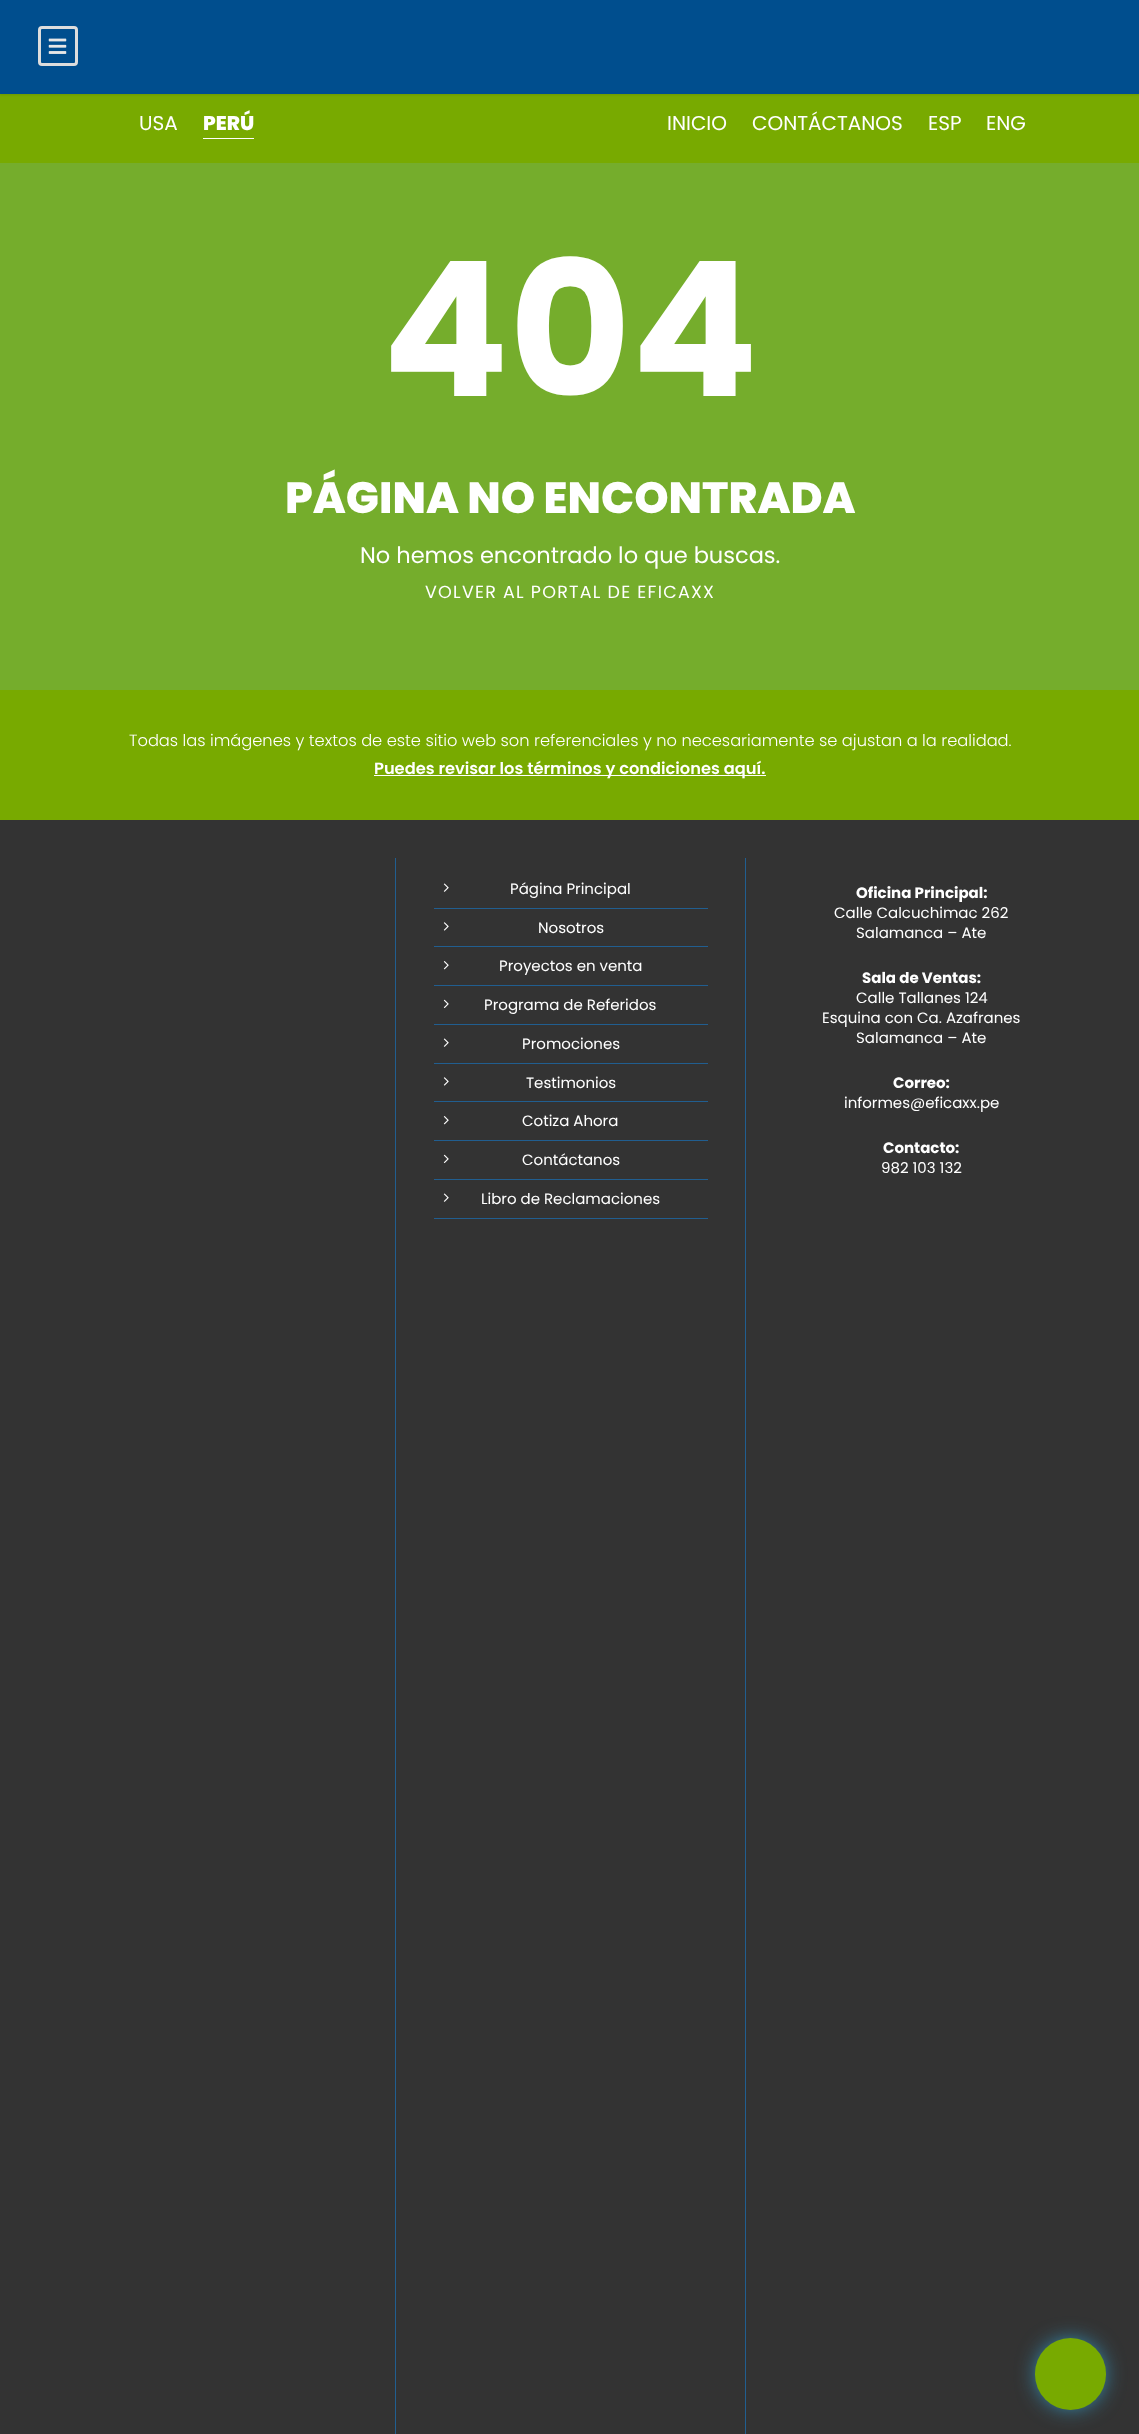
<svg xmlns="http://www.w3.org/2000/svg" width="1139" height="2434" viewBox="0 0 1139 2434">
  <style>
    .t1 { font: 20px Poppins; fill: #fff; }
    .t2 { font: 800 20px Poppins; fill: #fff; }
    .t3 { font: bold 187.5px Poppins; fill: #fff; }
    .t4 { font: 800 43.75px Poppins; fill: #fff; }
    .t5 { font: 22.5px Poppins; fill: #fff; }
    .t6 { font: 17.5px Poppins; letter-spacing: 1.25px; fill: #fff; }
    .t7 { font: 300 16.25px Poppins; fill: #fff; }
    .t8 { font: 600 16.25px Poppins; fill: #fff; }
    .t9 { font: 15px Poppins; fill: #fff; }
    .t10 { font: bold 15px Poppins; fill: #fff; }
  </style>
  <rect width="100%" height="100%" fill="#78aa00"/>
  <rect x="0" y="1" width="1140" height="94" fill="#0000001a" filter="blur(1px)"/>
  <rect x="0" y="0" width="1139" height="94" fill="#004e8e"/>
  <rect x="39.5" y="27.5" width="37" height="37" rx="2.5" fill="none" stroke="#ddd" stroke-width="3"/>
  <image x="48" y="38" width="19" height="16" href="images/1.png"/>
  <text x="139" y="130" class="t1">USA</text>
  <text x="203" y="130" class="t2">PERÚ</text>
  <rect x="203" y="138" width="51" height="1" fill="#fff"/>
  <text x="667" y="130" class="t1">INICIO</text>
  <text x="752" y="130" class="t1">CONTÁCTANOS</text>
  <text x="928" y="130" class="t1">ESP</text>
  <text x="986" y="130" class="t1">ENG</text>
  <rect x="0" y="163" width="1139" height="527" fill="#75ad2c"/>
  <text x="382" y="396" class="t3">404</text>
  <text x="285" y="513" class="t4">PÁGINA NO ENCONTRADA</text>
  <text x="360" y="563" class="t5">No hemos encontrado lo que buscas.</text>
  <text x="425" y="598" class="t6">VOLVER AL PORTAL DE EFICAXX</text>
  <text x="129" y="746" class="t7">Todas las imágenes y textos de este sitio web son referenciales y no necesariamente se ajustan a la realidad.</text>
  <rect x="374" y="775" width="392" height="1" fill="#fff"/>
  <text x="374" y="774" class="t8">Puedes revisar los términos y condiciones aquí.</text>
  <rect x="0" y="820" width="1139" height="1614" fill="#333"/>
  <rect x="395" y="858" width="1" height="1576" fill="#215e90"/>
  <rect x="434" y="908" width="274" height="1" fill="#215e90"/>
  <image x="443" y="883" width="6" height="9" href="images/2.png"/>
  <text x="510" y="894" class="t9">Página Principal</text>
  <rect x="434" y="946" width="274" height="1" fill="#215e90"/>
  <image x="443" y="922" width="6" height="9" href="images/3.png"/>
  <text x="538" y="933" class="t9">Nosotros</text>
  <rect x="434" y="985" width="274" height="1" fill="#215e90"/>
  <image x="443" y="961" width="6" height="9" href="images/4.png"/>
  <text x="499" y="971" class="t9">Proyectos en venta</text>
  <rect x="434" y="1024" width="274" height="1" fill="#215e90"/>
  <image x="443" y="999" width="6" height="10" href="images/5.png"/>
  <text x="484" y="1010" class="t9">Programa de Referidos</text>
  <rect x="434" y="1063" width="274" height="1" fill="#215e90"/>
  <image x="443" y="1038" width="6" height="9" href="images/2.png"/>
  <text x="522" y="1049" class="t9">Promociones</text>
  <rect x="434" y="1101" width="274" height="1" fill="#215e90"/>
  <image x="443" y="1077" width="6" height="9" href="images/3.png"/>
  <text x="526" y="1088" class="t9">Testimonios</text>
  <rect x="434" y="1140" width="274" height="1" fill="#215e90"/>
  <image x="443" y="1116" width="6" height="9" href="images/4.png"/>
  <text x="522" y="1126" class="t9">Cotiza Ahora</text>
  <rect x="434" y="1179" width="274" height="1" fill="#215e90"/>
  <image x="443" y="1154" width="6" height="10" href="images/5.png"/>
  <text x="522" y="1165" class="t9">Contáctanos</text>
  <rect x="434" y="1218" width="274" height="1" fill="#215e90"/>
  <image x="443" y="1193" width="6" height="9" href="images/2.png"/>
  <text x="481" y="1204" class="t9">Libro de Reclamaciones</text>
  <rect x="745" y="858" width="1" height="1576" fill="#215e90"/>
  <text x="856" y="898" class="t10">Oficina Principal:</text>
  <text x="834" y="918" class="t9">Calle Calcuchimac 262</text>
  <text x="856" y="938" class="t9">Salamanca – Ate</text>
  <text x="862" y="983" class="t10">Sala de Ventas:</text>
  <text x="856" y="1003" class="t9">Calle Tallanes 124</text>
  <text x="822" y="1023" class="t9">Esquina con Ca. Azafranes</text>
  <text x="856" y="1043" class="t9">Salamanca – Ate</text>
  <text x="893" y="1088" class="t10">Correo:</text>
  <text x="844" y="1108" class="t9">informes@eficaxx.pe</text>
  <text x="883" y="1153" class="t10">Contacto:</text>
  <text x="881" y="1173" class="t9">982 103 132</text>
  <rect x="1041" y="2344" width="59" height="60" rx="29.5" fill="#36c4ff" filter="blur(12.5px)"/>
  <rect x="1035" y="2338" width="71" height="72" rx="35.5" fill="#78aa00"/>
</svg>
